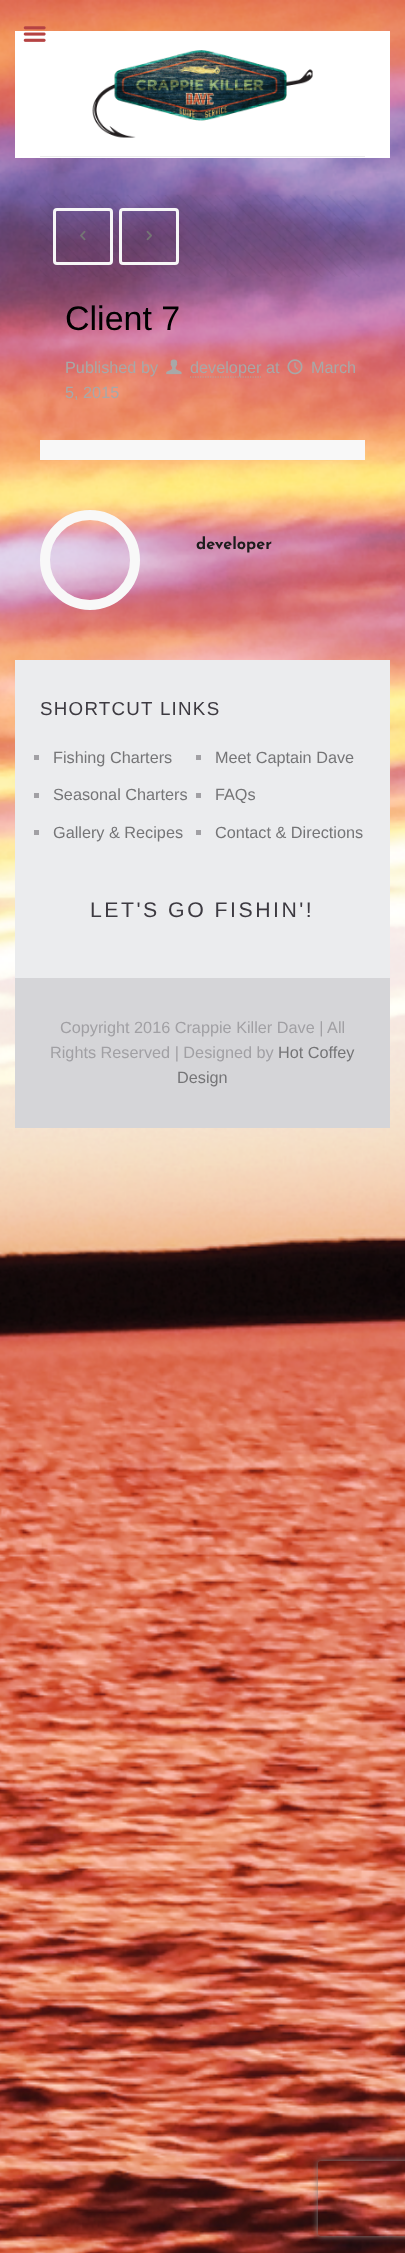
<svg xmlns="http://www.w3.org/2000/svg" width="405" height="2253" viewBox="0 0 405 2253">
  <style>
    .t1 { font: 34px Liberation Sans; fill: #000; }
    .t2 { font: 16.25px Liberation Sans; fill: #a8a8a8; }
    .t3 { font: bold 16.25px Josefin Sans; fill: #1c1c1c; }
    .t4 { font: 18.75px Liberation Sans; letter-spacing: 1.25px; fill: #3d3a41; }
    .t5 { font: 16.25px Liberation Sans; fill: #757577; }
    .t6 { font: 21.25px Liberation Sans; letter-spacing: 2.5px; fill: #3d3a41; }
    .t7 { font: 16.25px Liberation Sans; fill: #a1a0a4; }
  </style>
  <defs>
    <clipPath id="clip1"><path d="M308 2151H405V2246H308ZM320.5 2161H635.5C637 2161 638 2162 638 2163.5V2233.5C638 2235 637 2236 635.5 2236H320.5C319 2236 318 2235 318 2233.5V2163.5C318 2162 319 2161 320.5 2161Z" clip-rule="evenodd"/></clipPath>
  </defs>
  <rect width="100%" height="100%" fill="#fff"/>
  <image x="0" y="0" width="405" height="2253" href="images/1.png"/>
  <rect x="15" y="31" width="375" height="127" fill="#fff"/>
  <image x="23" y="26" width="23" height="16" href="images/2.png"/>
  <rect x="40" y="156" width="325" height="1" fill="#ebebeb"/>
  <image x="92" y="50" width="221" height="88" href="images/3.png"/>
  <image x="40" y="195" width="325" height="82" href="images/4.png"/>
  <rect x="54.5" y="209.5" width="57" height="54" rx="2.5" fill="none" stroke="#f7f7f7" stroke-width="3"/>
  <image x="80" y="230" width="6" height="11" href="images/5.png"/>
  <rect x="120.5" y="209.5" width="57" height="54" rx="2.5" fill="none" stroke="#f7f7f7" stroke-width="3"/>
  <image x="146" y="230" width="6" height="11" href="images/6.png"/>
  <text x="65" y="330" class="t1">Client 7</text>
  <image x="287" y="359" width="16" height="16" href="images/7.png"/>
  <text x="311" y="373" class="t2">March</text>
  <text x="65" y="398" class="t2">5, 2015</text>
  <text x="65" y="373" class="t2">Published by</text>
  <image x="166" y="359" width="16" height="16" href="images/8.png"/>
  <path d="M190 377H261" fill="none" stroke="#a8a8a8" stroke-width="1.2" stroke-dasharray="1.25 1.25"/>
  <text x="190" y="373" class="t2">developer at</text>
  <rect x="40" y="440" width="325" height="20" fill="#f8f8f8"/>
  <circle cx="90" cy="560" r="45" fill="none" stroke="#f8f8f8" stroke-width="10"/>
  <text x="196" y="549" class="t3">developer</text>
  <rect x="15" y="660" width="375" height="318" fill="#ebecee"/>
  <text x="40" y="715" class="t4">SHORTCUT LINKS</text>
  <rect x="34" y="755" width="5" height="5" fill="#a1a0a4"/>
  <text x="53" y="763" class="t5">Fishing Charters</text>
  <rect x="34" y="793" width="5" height="5" fill="#a1a0a4"/>
  <text x="53" y="800" class="t5">Seasonal Charters</text>
  <rect x="34" y="830" width="5" height="5" fill="#a1a0a4"/>
  <text x="53" y="838" class="t5">Gallery &amp; Recipes</text>
  <rect x="196" y="755" width="5" height="5" fill="#a1a0a4"/>
  <text x="215" y="763" class="t5">Meet Captain Dave</text>
  <rect x="196" y="793" width="5" height="5" fill="#a1a0a4"/>
  <text x="215" y="800" class="t5">FAQs</text>
  <rect x="196" y="830" width="5" height="5" fill="#a1a0a4"/>
  <text x="215" y="838" class="t5">Contact &amp; Directions</text>
  <text x="90" y="917" class="t6">LET'S GO FISHIN'!</text>
  <rect x="15" y="978" width="375" height="150" fill="#d5d5d8"/>
  <text x="60" y="1033" class="t7">Copyright 2016 Crappie Killer Dave | All</text>
  <text x="50" y="1058" class="t7">Rights Reserved | Designed by</text>
  <text x="278" y="1058" class="t5">Hot Coffey</text>
  <text x="177" y="1083" class="t5">Design</text>
  <g clip-path="url(#clip1)">
    <rect x="318" y="2161" width="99" height="75" rx="2.5" fill="#808080" filter="blur(3px)"/>
  </g>
</svg>
